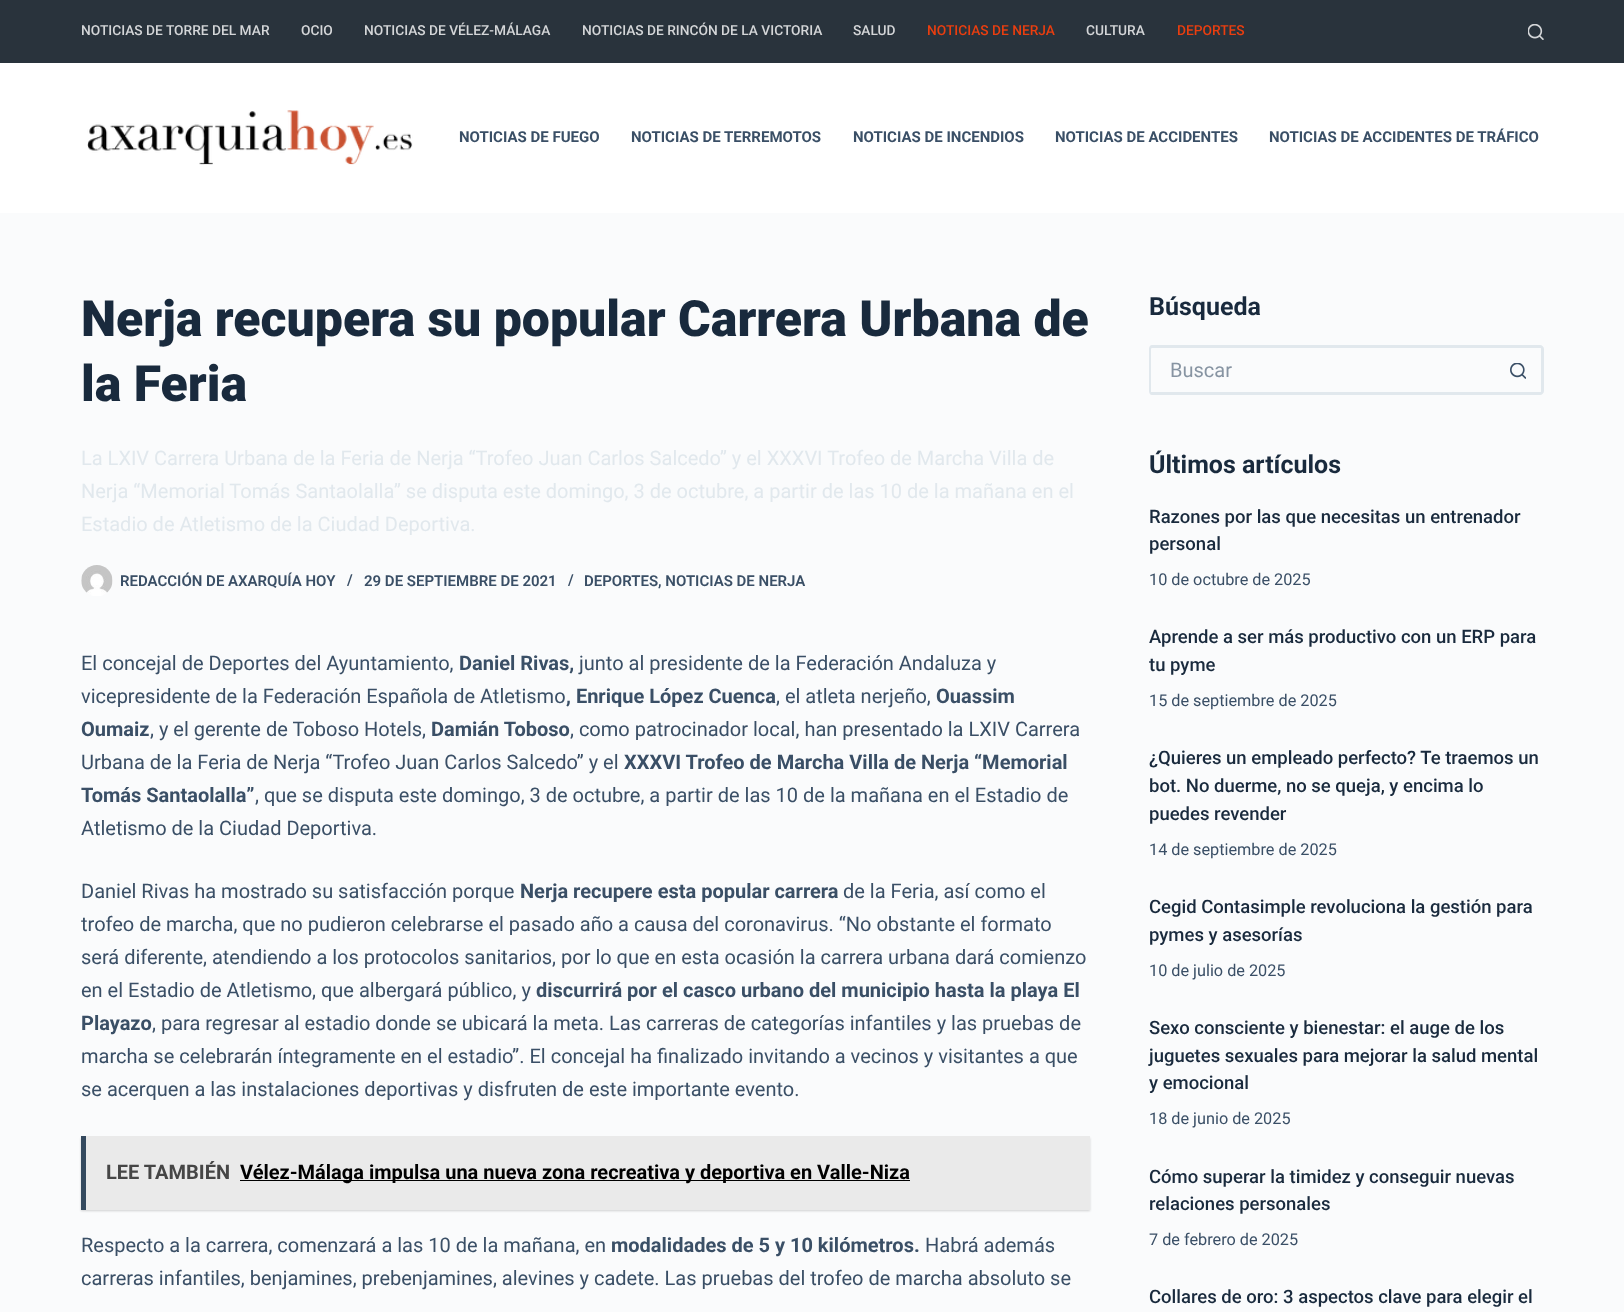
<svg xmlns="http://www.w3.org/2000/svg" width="1624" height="1312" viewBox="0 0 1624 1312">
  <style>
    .t1 { font: 500 13.75px Roboto; fill: #d4d6d8; }
    .t2 { font: 500 13.75px Roboto; fill: #ea3e0f; }
    .t3 { font: bold 15px Roboto; fill: #3a4f66; }
    .t4 { font: 900 50px Roboto; fill: #192a3d; }
    .t5 { font: 20px Roboto; fill: #e1e8ed; }
    .t6 { font: 600 15px Roboto; fill: #3a4f66; }
    .t7 { font: 20px Roboto; fill: #3a4f66; }
    .t8 { font: bold 20px Roboto; fill: #3a4f66; }
    .t9 { font: bold 20px Roboto; fill: #464646; }
    .t10 { font: bold 20px Roboto; fill: #000; }
    .t11 { font: bold 25px Roboto; fill: #192a3d; }
    .t12 { font: 20px Roboto; fill: #8794a2; }
    .t13 { font: 500 18.5px Roboto; fill: #192a3d; }
    .t14 { font: 16.25px Roboto; fill: #3a4f66; }
  </style>
  <rect width="100%" height="100%" fill="#fafbfc"/>
  <rect x="0" y="0" width="1624" height="63" fill="#29333c"/>
  <text x="81" y="35" class="t1">NOTICIAS DE TORRE DEL MAR</text>
  <text x="301" y="35" class="t1">OCIO</text>
  <text x="364" y="35" class="t1">NOTICIAS DE VÉLEZ-MÁLAGA</text>
  <text x="582" y="35" class="t1">NOTICIAS DE RINCÓN DE LA VICTORIA</text>
  <text x="853" y="35" class="t1">SALUD</text>
  <text x="927" y="35" class="t2">NOTICIAS DE NERJA</text>
  <text x="1086" y="35" class="t1">CULTURA</text>
  <text x="1177" y="35" class="t2">DEPORTES</text>
  <image x="1528" y="24" width="16" height="16" href="images/1.png"/>
  <rect x="0" y="63" width="1624" height="150" fill="#fff"/>
  <image x="87" y="110" width="326" height="55" href="images/2.png"/>
  <text x="459" y="142" class="t3">NOTICIAS DE FUEGO</text>
  <text x="631" y="142" class="t3">NOTICIAS DE TERREMOTOS</text>
  <text x="853" y="142" class="t3">NOTICIAS DE INCENDIOS</text>
  <text x="1055" y="142" class="t3">NOTICIAS DE ACCIDENTES</text>
  <text x="1269" y="142" class="t3">NOTICIAS DE ACCIDENTES DE TRÁFICO</text>
  <text x="81" y="336" class="t4">Nerja recupera su popular Carrera Urbana de</text>
  <text x="81" y="401" class="t4">la Feria</text>
  <text x="81" y="465" class="t5">La LXIV Carrera Urbana de la Feria de Nerja “Trofeo Juan Carlos Salcedo” y el XXXVI Trofeo de Marcha Villa de</text>
  <text x="81" y="498" class="t5">Nerja “Memorial Tomás Santaolalla” se disputa este domingo, 3 de octubre, a partir de las 10 de la mañana en el</text>
  <text x="81" y="531" class="t5">Estadio de Atletismo de la Ciudad Deportiva.</text>
  <image x="81" y="565" width="32" height="31" href="images/3.png"/>
  <text x="120" y="586" class="t6">REDACCIÓN DE AXARQUÍA HOY</text>
  <text x="347" y="585" class="t6">/</text>
  <text x="364" y="586" class="t6">29 DE SEPTIEMBRE DE 2021</text>
  <text x="568" y="585" class="t6">/</text>
  <text x="584" y="586" class="t6">DEPORTES, NOTICIAS DE NERJA</text>
  <text x="81" y="670" class="t7">El concejal de Deportes del Ayuntamiento,</text>
  <text x="459" y="670" class="t8">Daniel Rivas,</text>
  <text x="579" y="670" class="t7">junto al presidente de la Federación Andaluza y</text>
  <text x="81" y="703" class="t7">vicepresidente de la Federación Española de Atletismo</text>
  <text x="566" y="703" class="t8">, Enrique López Cuenca</text>
  <text x="776" y="703" class="t7">, el atleta nerjeño,</text>
  <text x="936" y="703" class="t8">Ouassim</text>
  <text x="81" y="736" class="t8">Oumaiz</text>
  <text x="150" y="736" class="t7">, y el gerente de Toboso Hotels,</text>
  <text x="431" y="736" class="t8">Damián Toboso</text>
  <text x="570" y="736" class="t7">, como patrocinador local, han presentado la LXIV Carrera</text>
  <text x="81" y="769" class="t7">Urbana de la Feria de Nerja “Trofeo Juan Carlos Salcedo” y el</text>
  <text x="624" y="769" class="t8">XXXVI Trofeo de Marcha Villa de Nerja “Memorial</text>
  <text x="81" y="802" class="t8">Tomás Santaolalla”</text>
  <text x="255" y="802" class="t7">, que se disputa este domingo, 3 de octubre, a partir de las 10 de la mañana en el Estadio de</text>
  <text x="81" y="835" class="t7">Atletismo de la Ciudad Deportiva.</text>
  <text x="81" y="898" class="t7">Daniel Rivas ha mostrado su satisfacción porque</text>
  <text x="520" y="898" class="t8">Nerja recupere esta popular carrera</text>
  <text x="843" y="898" class="t7">de la Feria, así como el</text>
  <text x="81" y="931" class="t7">trofeo de marcha, que no pudieron celebrarse el pasado año a causa del coronavirus. “No obstante el formato</text>
  <text x="81" y="964" class="t7">será diferente, atendiendo a los protocolos sanitarios, por lo que en esta ocasión la carrera urbana dará comienzo</text>
  <text x="81" y="997" class="t7">en el Estadio de Atletismo, que albergará público, y</text>
  <text x="536" y="997" class="t8">discurrirá por el casco urbano del municipio hasta la playa El</text>
  <text x="81" y="1030" class="t8">Playazo</text>
  <text x="152" y="1030" class="t7">, para regresar al estadio donde se ubicará la meta. Las carreras de categorías infantiles y las pruebas de</text>
  <text x="81" y="1063" class="t7">marcha se celebrarán íntegramente en el estadio”. El concejal ha finalizado invitando a vecinos y visitantes a que</text>
  <text x="81" y="1096" class="t7">se acerquen a las instalaciones deportivas y disfruten de este importante evento.</text>
  <rect x="81" y="1138" width="1009" height="73" fill="#0000002b" filter="blur(1px)"/>
  <rect x="86" y="1136" width="1004" height="74" fill="#eaeaea"/>
  <rect x="81" y="1136" width="5" height="74" fill="#34495e"/>
  <text x="106" y="1179" class="t9">LEE TAMBIÉN</text>
  <rect x="240" y="1180" width="670" height="1" fill="#000"/>
  <text x="240" y="1179" class="t10">Vélez-Málaga impulsa una nueva zona recreativa y deportiva en Valle-Niza</text>
  <text x="81" y="1252" class="t7">Respecto a la carrera, comenzará a las 10 de la mañana, en</text>
  <text x="611" y="1252" class="t8">modalidades de 5 y 10 kilómetros.</text>
  <text x="925" y="1252" class="t7">Habrá además</text>
  <text x="81" y="1285" class="t7">carreras infantiles, benjamines, prebenjamines, alevines y cadete. Las pruebas del trofeo de marcha absoluto se</text>
  <text x="1149" y="315" class="t11">Búsqueda</text>
  <path d="M1152 345H1494V395H1152C1150 395 1149 393 1149 391V349C1149 347 1150 345 1152 345ZM1152 348H1494V392H1152H1151V349C1151 348 1152 348 1152 348Z" fill="#e1e8ed" fill-rule="evenodd"/>
  <text x="1170" y="377" class="t12">Buscar</text>
  <path d="M1494 345H1540C1542 345 1544 347 1544 349V391C1544 393 1542 395 1540 395H1494ZM1494 348H1540C1541 348 1541 348 1541 349V391C1541 392 1541 392 1540 392H1494Z" fill="#e1e8ed" fill-rule="evenodd"/>
  <image x="1510" y="363" width="16" height="16" href="images/4.png"/>
  <text x="1149" y="473" class="t11">Últimos artículos</text>
  <text x="1149" y="523" class="t13">Razones por las que necesitas un entrenador</text>
  <text x="1149" y="550" class="t13">personal</text>
  <text x="1149" y="585" class="t14">10 de octubre de 2025</text>
  <text x="1149" y="643" class="t13">Aprende a ser más productivo con un ERP para</text>
  <text x="1149" y="671" class="t13">tu pyme</text>
  <text x="1149" y="706" class="t14">15 de septiembre de 2025</text>
  <text x="1149" y="764" class="t13">¿Quieres un empleado perfecto? Te traemos un</text>
  <text x="1149" y="792" class="t13">bot. No duerme, no se queja, y encima lo</text>
  <text x="1149" y="820" class="t13">puedes revender</text>
  <text x="1149" y="855" class="t14">14 de septiembre de 2025</text>
  <text x="1149" y="913" class="t13">Cegid Contasimple revoluciona la gestión para</text>
  <text x="1149" y="941" class="t13">pymes y asesorías</text>
  <text x="1149" y="976" class="t14">10 de julio de 2025</text>
  <text x="1149" y="1034" class="t13">Sexo consciente y bienestar: el auge de los</text>
  <text x="1149" y="1062" class="t13">juguetes sexuales para mejorar la salud mental</text>
  <text x="1149" y="1089" class="t13">y emocional</text>
  <text x="1149" y="1124" class="t14">18 de junio de 2025</text>
  <text x="1149" y="1183" class="t13">Cómo superar la timidez y conseguir nuevas</text>
  <text x="1149" y="1210" class="t13">relaciones personales</text>
  <text x="1149" y="1245" class="t14">7 de febrero de 2025</text>
  <text x="1149" y="1303" class="t13">Collares de oro: 3 aspectos clave para elegir el</text>
</svg>
